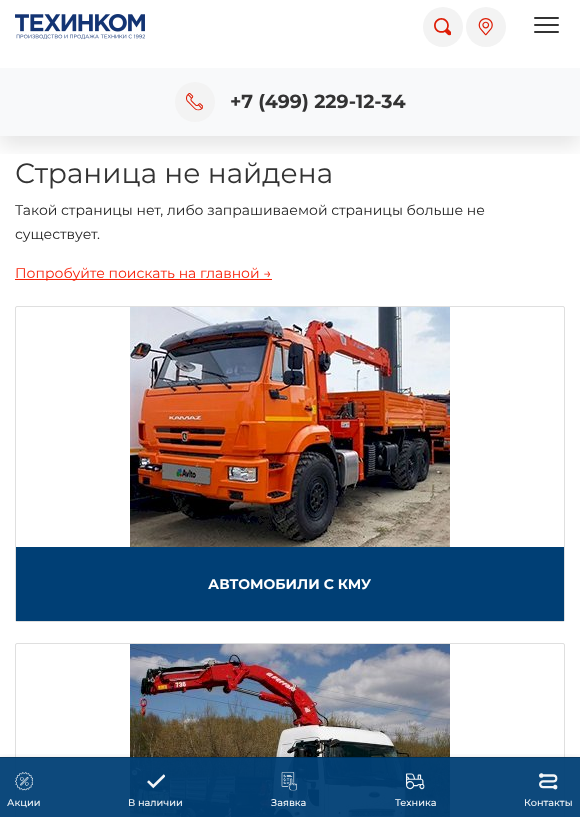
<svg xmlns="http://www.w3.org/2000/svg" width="580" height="817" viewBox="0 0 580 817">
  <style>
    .t1 { font: bold 19px Montserrat; fill: #333; }
    .t2 { font: 28px Montserrat; fill: #333; }
    .t3 { font: 14px Montserrat; fill: #222; }
    .t4 { font: 14px Montserrat; fill: #f72108; }
    .t5 { font: bold 14px Montserrat; fill: #fff; }
    .t6 { font: 500 9.75px Montserrat; fill: #f3f6f8; }
  </style>
  <defs>
    <clipPath id="clip1"><rect x="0" y="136" width="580" height="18"/></clipPath>
    <clipPath id="clip2"><rect x="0" y="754" width="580" height="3"/></clipPath>
  </defs>
  <rect width="100%" height="100%" fill="#fff"/>
  <g clip-path="url(#clip1)">
    <rect x="0" y="10" width="580" height="136" fill="#0000001a" filter="blur(10px)"/>
  </g>
  <image x="15" y="14" width="130" height="26" href="images/1.png"/>
  <circle cx="443" cy="27" r="20" fill="#f3f3f3"/>
  <image x="434" y="18" width="17" height="18" href="images/2.png"/>
  <circle cx="486" cy="27" r="20" fill="#f3f3f3"/>
  <image x="478" y="18" width="15" height="18" href="images/3.png"/>
  <rect x="534" y="17" width="25" height="2" rx="1" fill="#333"/>
  <rect x="534" y="24" width="25" height="2" rx="1" fill="#333"/>
  <rect x="534" y="31" width="25" height="2" rx="1" fill="#333"/>
  <rect x="0" y="68" width="580" height="68" fill="#f8f9fa"/>
  <circle cx="195" cy="102" r="20" fill="#f3f3f3"/>
  <image x="186" y="93" width="17" height="18" href="images/4.png"/>
  <text x="230" y="108" class="t1">+7 (499) 229-12-34</text>
  <text x="15" y="183" class="t2">Страница не найдена</text>
  <text x="15" y="215" class="t3">Такой страницы нет, либо запрашиваемой страницы больше не</text>
  <text x="15" y="239" class="t3">существует.</text>
  <rect x="15" y="279" width="257" height="1" fill="#f72108"/>
  <text x="15" y="278" class="t4">Попробуйте поискать на главной →</text>
  <rect x="15.5" y="306.5" width="549" height="315" rx="1.5" fill="none" stroke="#dfdfdf"/>
  <image x="130" y="307" width="320" height="240" href="images/5.png"/>
  <rect x="16" y="547" width="548" height="74" fill="#003f75"/>
  <text x="208" y="589" class="t5">АВТОМОБИЛИ С КМУ</text>
  <rect x="15.5" y="643.5" width="549" height="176" rx="1.5" fill="none" stroke="#dfdfdf"/>
  <image x="130" y="644" width="320" height="173" href="images/6.png"/>
  <g clip-path="url(#clip2)">
    <rect x="0" y="762" width="580" height="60" fill="#00000061" filter="blur(5px)"/>
  </g>
  <rect x="0" y="757" width="580" height="60" fill="#003f75f2"/>
  <rect x="0" y="757" width="580" height="1" fill="#00000030"/>
  <image x="15" y="772" width="18" height="19" href="images/7.png"/>
  <text x="7" y="806" class="t6">Акции</text>
  <image x="147" y="774" width="18" height="15" href="images/8.png"/>
  <text x="128" y="806" class="t6">В наличии</text>
  <image x="281" y="772" width="16" height="19" href="images/9.png"/>
  <text x="271" y="806" class="t6">Заявка</text>
  <image x="406" y="773" width="19" height="17" href="images/10.png"/>
  <text x="395" y="806" class="t6">Техника</text>
  <image x="539" y="773" width="19" height="17" href="images/11.png"/>
  <text x="524" y="806" class="t6">Контакты</text>
</svg>
